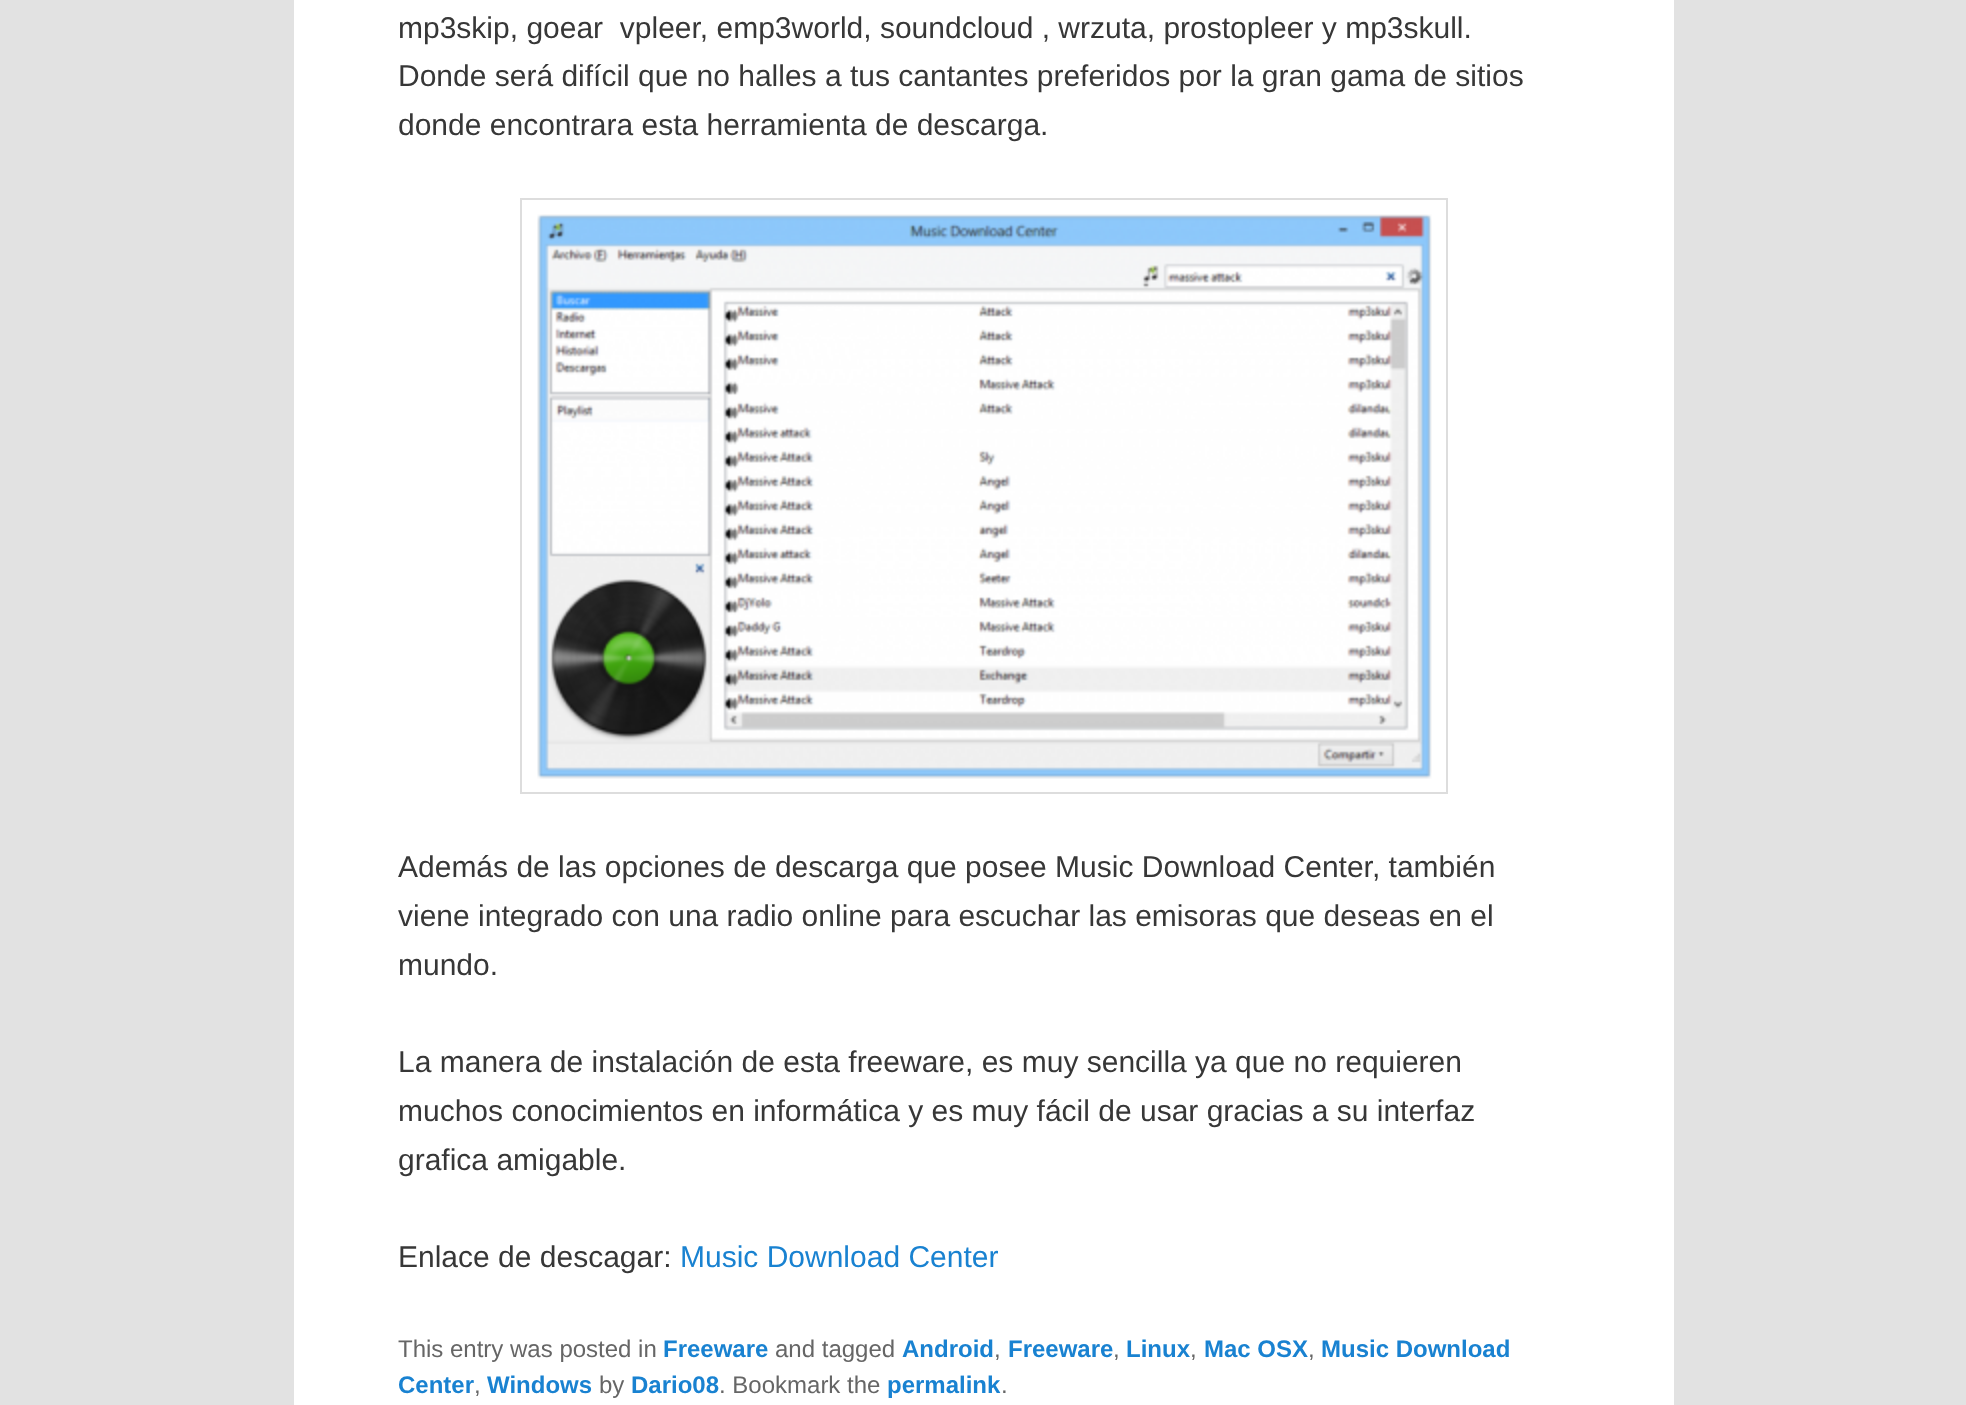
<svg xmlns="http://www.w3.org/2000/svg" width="1966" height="1405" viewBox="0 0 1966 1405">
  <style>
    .t1 { font: 30px Liberation Sans; fill: #373737; }
    .t2 { font: 30px Liberation Sans; fill: #1982d1; }
    .t3 { font: 24px Liberation Sans; fill: #666; }
    .t4 { font: bold 24px Liberation Sans; fill: #1982d1; }
  </style>
  <rect width="100%" height="100%" fill="#e2e2e2"/>
  <rect x="294" y="0" width="1380" height="1405" fill="#fff"/>
  <text x="398" y="38" class="t1" xml:space="preserve">mp3skip, goear  vpleer, emp3world, soundcloud , wrzuta, prostopleer y mp3skull.</text>
  <text x="398" y="86" class="t1">Donde será difícil que no halles a tus cantantes preferidos por la gran gama de sitios</text>
  <text x="398" y="135" class="t1">donde encontrara esta herramienta de descarga.</text>
  <rect x="521" y="199" width="926" height="594" fill="none" stroke="#ddd" stroke-width="2"/>
  <image x="537" y="214" width="895" height="565" href="images/1.png"/>
  <text x="398" y="877" class="t1">Además de las opciones de descarga que posee Music Download Center, también</text>
  <text x="398" y="926" class="t1">viene integrado con una radio online para escuchar las emisoras que deseas en el</text>
  <text x="398" y="975" class="t1">mundo.</text>
  <text x="398" y="1072" class="t1">La manera de instalación de esta freeware, es muy sencilla ya que no requieren</text>
  <text x="398" y="1121" class="t1">muchos conocimientos en informática y es muy fácil de usar gracias a su interfaz</text>
  <text x="398" y="1170" class="t1">grafica amigable.</text>
  <text x="398" y="1267" class="t1">Enlace de descagar:</text>
  <text x="680" y="1267" class="t2">Music Download Center</text>
  <text x="398" y="1357" class="t3">This entry was posted in</text>
  <text x="663" y="1357" class="t4">Freeware</text>
  <text x="775" y="1357" class="t3">and tagged</text>
  <text x="902" y="1357" class="t4">Android</text>
  <text x="994" y="1357" class="t3">,</text>
  <text x="1008" y="1357" class="t4">Freeware</text>
  <text x="1113" y="1357" class="t3">,</text>
  <text x="1126" y="1357" class="t4">Linux</text>
  <text x="1190" y="1357" class="t3">,</text>
  <text x="1204" y="1357" class="t4">Mac OSX</text>
  <text x="1308" y="1357" class="t3">,</text>
  <text x="1321" y="1357" class="t4">Music Download</text>
  <text x="398" y="1393" class="t4">Center</text>
  <text x="474" y="1393" class="t3">,</text>
  <text x="487" y="1393" class="t4">Windows</text>
  <text x="599" y="1393" class="t3">by</text>
  <text x="631" y="1393" class="t4">Dario08</text>
  <text x="719" y="1393" class="t3">. Bookmark the</text>
  <text x="887" y="1393" class="t4">permalink</text>
  <text x="1001" y="1393" class="t3">.</text>
</svg>
